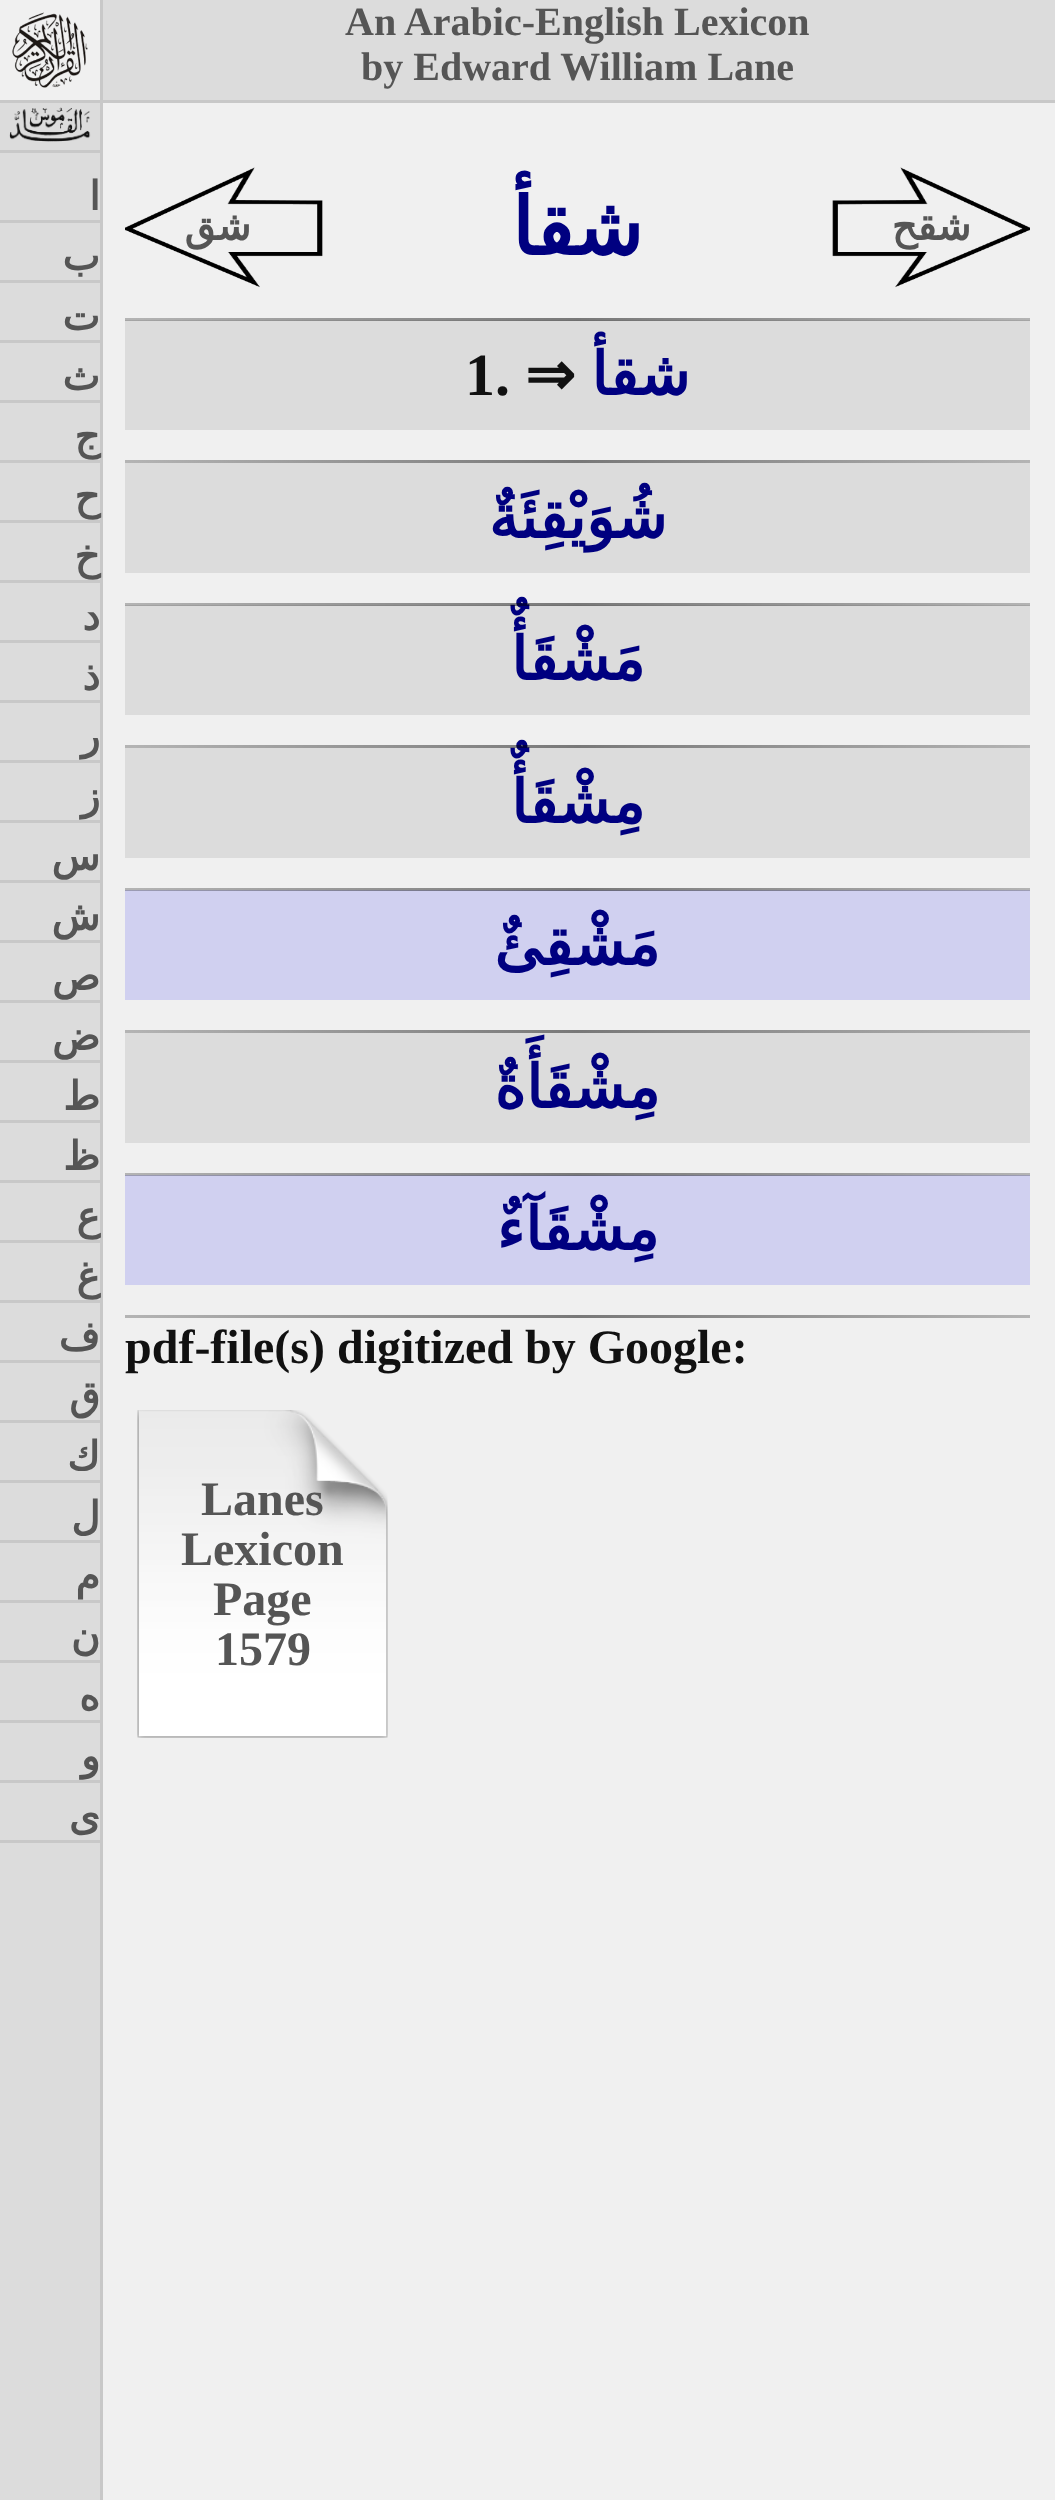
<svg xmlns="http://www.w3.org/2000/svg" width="1055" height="2500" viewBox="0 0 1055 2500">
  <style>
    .t1 { font: bold 40px Liberation Serif; fill: #555; }
    .t2 { font: bold 40px DejaVu Sans; direction: rtl; fill: #555; }
    .t3 { font: bold 80px DejaVu Sans; direction: rtl; fill: #000080; }
    .t4 { font: bold 60px DejaVu Sans; direction: rtl; fill: #000080; }
    .t5 { font: bold 60px DejaVu Sans; fill: #111; }
    .t6 { font: bold 60px Liberation Serif; fill: #111; }
    .t7 { font: bold 48px Liberation Serif; fill: #111; }
    .t8 { font: bold 48px Liberation Serif; fill: #555; }
  </style>
  <defs>
    <linearGradient id="g1" gradientUnits="userSpaceOnUse" x1="125" y1="319" x2="1030" y2="319"><stop offset="0" stop-color="#000" stop-opacity="0.25"/><stop offset="0.5" stop-color="#000" stop-opacity="0.5"/><stop offset="1" stop-color="#000" stop-opacity="0.25"/></linearGradient>
    <linearGradient id="g2" gradientUnits="userSpaceOnUse" x1="125" y1="461" x2="1030" y2="461"><stop offset="0" stop-color="#b4b4b4"/><stop offset="0.5" stop-color="#787878"/><stop offset="1" stop-color="#b4b4b4"/></linearGradient>
    <linearGradient id="g3" gradientUnits="userSpaceOnUse" x1="125" y1="604" x2="1030" y2="604"><stop offset="0" stop-color="#000" stop-opacity="0.25"/><stop offset="0.5" stop-color="#000" stop-opacity="0.5"/><stop offset="1" stop-color="#000" stop-opacity="0.25"/></linearGradient>
    <linearGradient id="g4" gradientUnits="userSpaceOnUse" x1="125" y1="746" x2="1030" y2="746"><stop offset="0" stop-color="#000" stop-opacity="0.25"/><stop offset="0.5" stop-color="#000" stop-opacity="0.5"/><stop offset="1" stop-color="#000" stop-opacity="0.25"/></linearGradient>
    <linearGradient id="g5" gradientUnits="userSpaceOnUse" x1="125" y1="889" x2="1030" y2="889"><stop offset="0" stop-color="#000" stop-opacity="0.25"/><stop offset="0.5" stop-color="#000" stop-opacity="0.5"/><stop offset="1" stop-color="#000" stop-opacity="0.25"/></linearGradient>
    <linearGradient id="g6" gradientUnits="userSpaceOnUse" x1="125" y1="1031" x2="1030" y2="1031"><stop offset="0" stop-color="#b4b4b4"/><stop offset="0.5" stop-color="#787878"/><stop offset="1" stop-color="#b4b4b4"/></linearGradient>
    <linearGradient id="g7" gradientUnits="userSpaceOnUse" x1="125" y1="1174" x2="1030" y2="1174"><stop offset="0" stop-color="#000" stop-opacity="0.25"/><stop offset="0.5" stop-color="#000" stop-opacity="0.5"/><stop offset="1" stop-color="#000" stop-opacity="0.25"/></linearGradient>
    <linearGradient id="g8" gradientUnits="userSpaceOnUse" x1="125" y1="1316" x2="1030" y2="1316"><stop offset="0" stop-color="#b4b4b4"/><stop offset="0.5" stop-color="#787878"/><stop offset="1" stop-color="#b4b4b4"/></linearGradient>
  </defs>
  <rect width="100%" height="100%" fill="#f0f0f0"/>
  <rect x="103" y="0" width="952" height="100" fill="#dcdcdc"/>
  <rect x="0" y="100" width="1055" height="3" fill="#c8c8c8"/>
  <text x="345" y="35" class="t1">An Arabic-English Lexicon</text>
  <text x="361" y="80" class="t1">by Edward William Lane</text>
  <image x="832" y="167" width="198" height="121" href="images/1.png"/>
  <text x="971" y="240" class="t2">شقح</text>
  <text x="643" y="255" class="t3">شقأ</text>
  <image x="125" y="167" width="198" height="121" href="images/2.png"/>
  <text x="251" y="240" class="t2">شق</text>
  <rect x="125" y="320" width="905" height="110" fill="#dcdcdc"/>
  <rect x="125" y="318" width="905" height="3" fill="url(#g1)"/>
  <text x="690" y="395" class="t4">شقأ</text>
  <text x="525" y="395" class="t5">⇒</text>
  <text x="465" y="395" class="t6">1.</text>
  <rect x="125" y="460" width="905" height="3" fill="url(#g2)"/>
  <rect x="125" y="463" width="905" height="110" fill="#dcdcdc"/>
  <text x="667" y="538" class="t4">شُوَيْقِئَةٌ</text>
  <rect x="125" y="605" width="905" height="110" fill="#dcdcdc"/>
  <text x="645" y="680" class="t4">مَشْقَأٌ</text>
  <rect x="125" y="603" width="905" height="3" fill="url(#g3)"/>
  <rect x="125" y="748" width="905" height="110" fill="#dcdcdc"/>
  <text x="645" y="823" class="t4">مِشْقَأٌ</text>
  <rect x="125" y="745" width="905" height="3" fill="url(#g4)"/>
  <rect x="125" y="890" width="905" height="110" fill="#d0d0f0"/>
  <rect x="125" y="888" width="905" height="3" fill="url(#g5)"/>
  <text x="660" y="965" class="t4">مَشْقِئٌ</text>
  <rect x="125" y="1030" width="905" height="3" fill="url(#g6)"/>
  <rect x="125" y="1033" width="905" height="110" fill="#dcdcdc"/>
  <text x="660" y="1108" class="t4">مِشْقَأَةٌ</text>
  <rect x="125" y="1175" width="905" height="110" fill="#d0d0f0"/>
  <rect x="125" y="1173" width="905" height="3" fill="url(#g7)"/>
  <text x="659" y="1250" class="t4">مِشْقَآءٌ</text>
  <rect x="125" y="1315" width="905" height="3" fill="url(#g8)"/>
  <text x="125" y="1363" class="t7">pdf-file(s) digitized by Google:</text>
  <image x="137" y="1410" width="251" height="328" href="images/3.png"/>
  <text x="201" y="1515" class="t8">Lanes</text>
  <text x="181" y="1565" class="t8">Lexicon</text>
  <text x="213" y="1615" class="t8">Page</text>
  <text x="215" y="1665" class="t8">1579</text>
  <rect x="0" y="103" width="100" height="2397" fill="#dcdcdc"/>
  <rect x="100" y="0" width="3" height="2500" fill="#c8c8c8"/>
  <image x="12" y="12" width="76" height="76" href="images/4.png"/>
  <rect x="0" y="150" width="100" height="3" fill="#c8c8c8"/>
  <image x="9" y="107" width="82" height="35" href="images/5.png"/>
  <rect x="0" y="220" width="100" height="3" fill="#c8c8c8"/>
  <text x="100" y="210" class="t2">ا</text>
  <rect x="0" y="280" width="100" height="3" fill="#c8c8c8"/>
  <text x="100" y="270" class="t2">ب</text>
  <rect x="0" y="340" width="100" height="3" fill="#c8c8c8"/>
  <text x="100" y="330" class="t2">ت</text>
  <rect x="0" y="400" width="100" height="3" fill="#c8c8c8"/>
  <text x="100" y="390" class="t2">ث</text>
  <rect x="0" y="460" width="100" height="3" fill="#c8c8c8"/>
  <text x="100" y="450" class="t2">ج</text>
  <rect x="0" y="520" width="100" height="3" fill="#c8c8c8"/>
  <text x="100" y="510" class="t2">ح</text>
  <rect x="0" y="580" width="100" height="3" fill="#c8c8c8"/>
  <text x="100" y="570" class="t2">خ</text>
  <rect x="0" y="640" width="100" height="3" fill="#c8c8c8"/>
  <text x="100" y="630" class="t2">د</text>
  <rect x="0" y="700" width="100" height="3" fill="#c8c8c8"/>
  <text x="100" y="690" class="t2">ذ</text>
  <rect x="0" y="760" width="100" height="3" fill="#c8c8c8"/>
  <text x="100" y="750" class="t2">ر</text>
  <rect x="0" y="820" width="100" height="3" fill="#c8c8c8"/>
  <text x="100" y="810" class="t2">ز</text>
  <rect x="0" y="880" width="100" height="3" fill="#c8c8c8"/>
  <text x="100" y="870" class="t2">س</text>
  <rect x="0" y="940" width="100" height="3" fill="#c8c8c8"/>
  <text x="100" y="930" class="t2">ش</text>
  <rect x="0" y="1000" width="100" height="3" fill="#c8c8c8"/>
  <text x="100" y="990" class="t2">ص</text>
  <rect x="0" y="1060" width="100" height="3" fill="#c8c8c8"/>
  <text x="100" y="1050" class="t2">ض</text>
  <rect x="0" y="1120" width="100" height="3" fill="#c8c8c8"/>
  <text x="100" y="1110" class="t2">ط</text>
  <rect x="0" y="1180" width="100" height="3" fill="#c8c8c8"/>
  <text x="100" y="1170" class="t2">ظ</text>
  <rect x="0" y="1240" width="100" height="3" fill="#c8c8c8"/>
  <text x="100" y="1230" class="t2">ع</text>
  <rect x="0" y="1300" width="100" height="3" fill="#c8c8c8"/>
  <text x="100" y="1290" class="t2">غ</text>
  <rect x="0" y="1360" width="100" height="3" fill="#c8c8c8"/>
  <text x="100" y="1350" class="t2">ف</text>
  <rect x="0" y="1420" width="100" height="3" fill="#c8c8c8"/>
  <text x="100" y="1410" class="t2">ق</text>
  <rect x="0" y="1480" width="100" height="3" fill="#c8c8c8"/>
  <text x="100" y="1470" class="t2">ك</text>
  <rect x="0" y="1540" width="100" height="3" fill="#c8c8c8"/>
  <text x="100" y="1530" class="t2">ل</text>
  <rect x="0" y="1600" width="100" height="3" fill="#c8c8c8"/>
  <text x="100" y="1590" class="t2">م</text>
  <rect x="0" y="1660" width="100" height="3" fill="#c8c8c8"/>
  <text x="100" y="1650" class="t2">ن</text>
  <rect x="0" y="1720" width="100" height="3" fill="#c8c8c8"/>
  <text x="100" y="1710" class="t2">ه</text>
  <rect x="0" y="1780" width="100" height="3" fill="#c8c8c8"/>
  <text x="100" y="1770" class="t2">و</text>
  <rect x="0" y="1840" width="100" height="3" fill="#c8c8c8"/>
  <text x="100" y="1830" class="t2">ى</text>
</svg>
